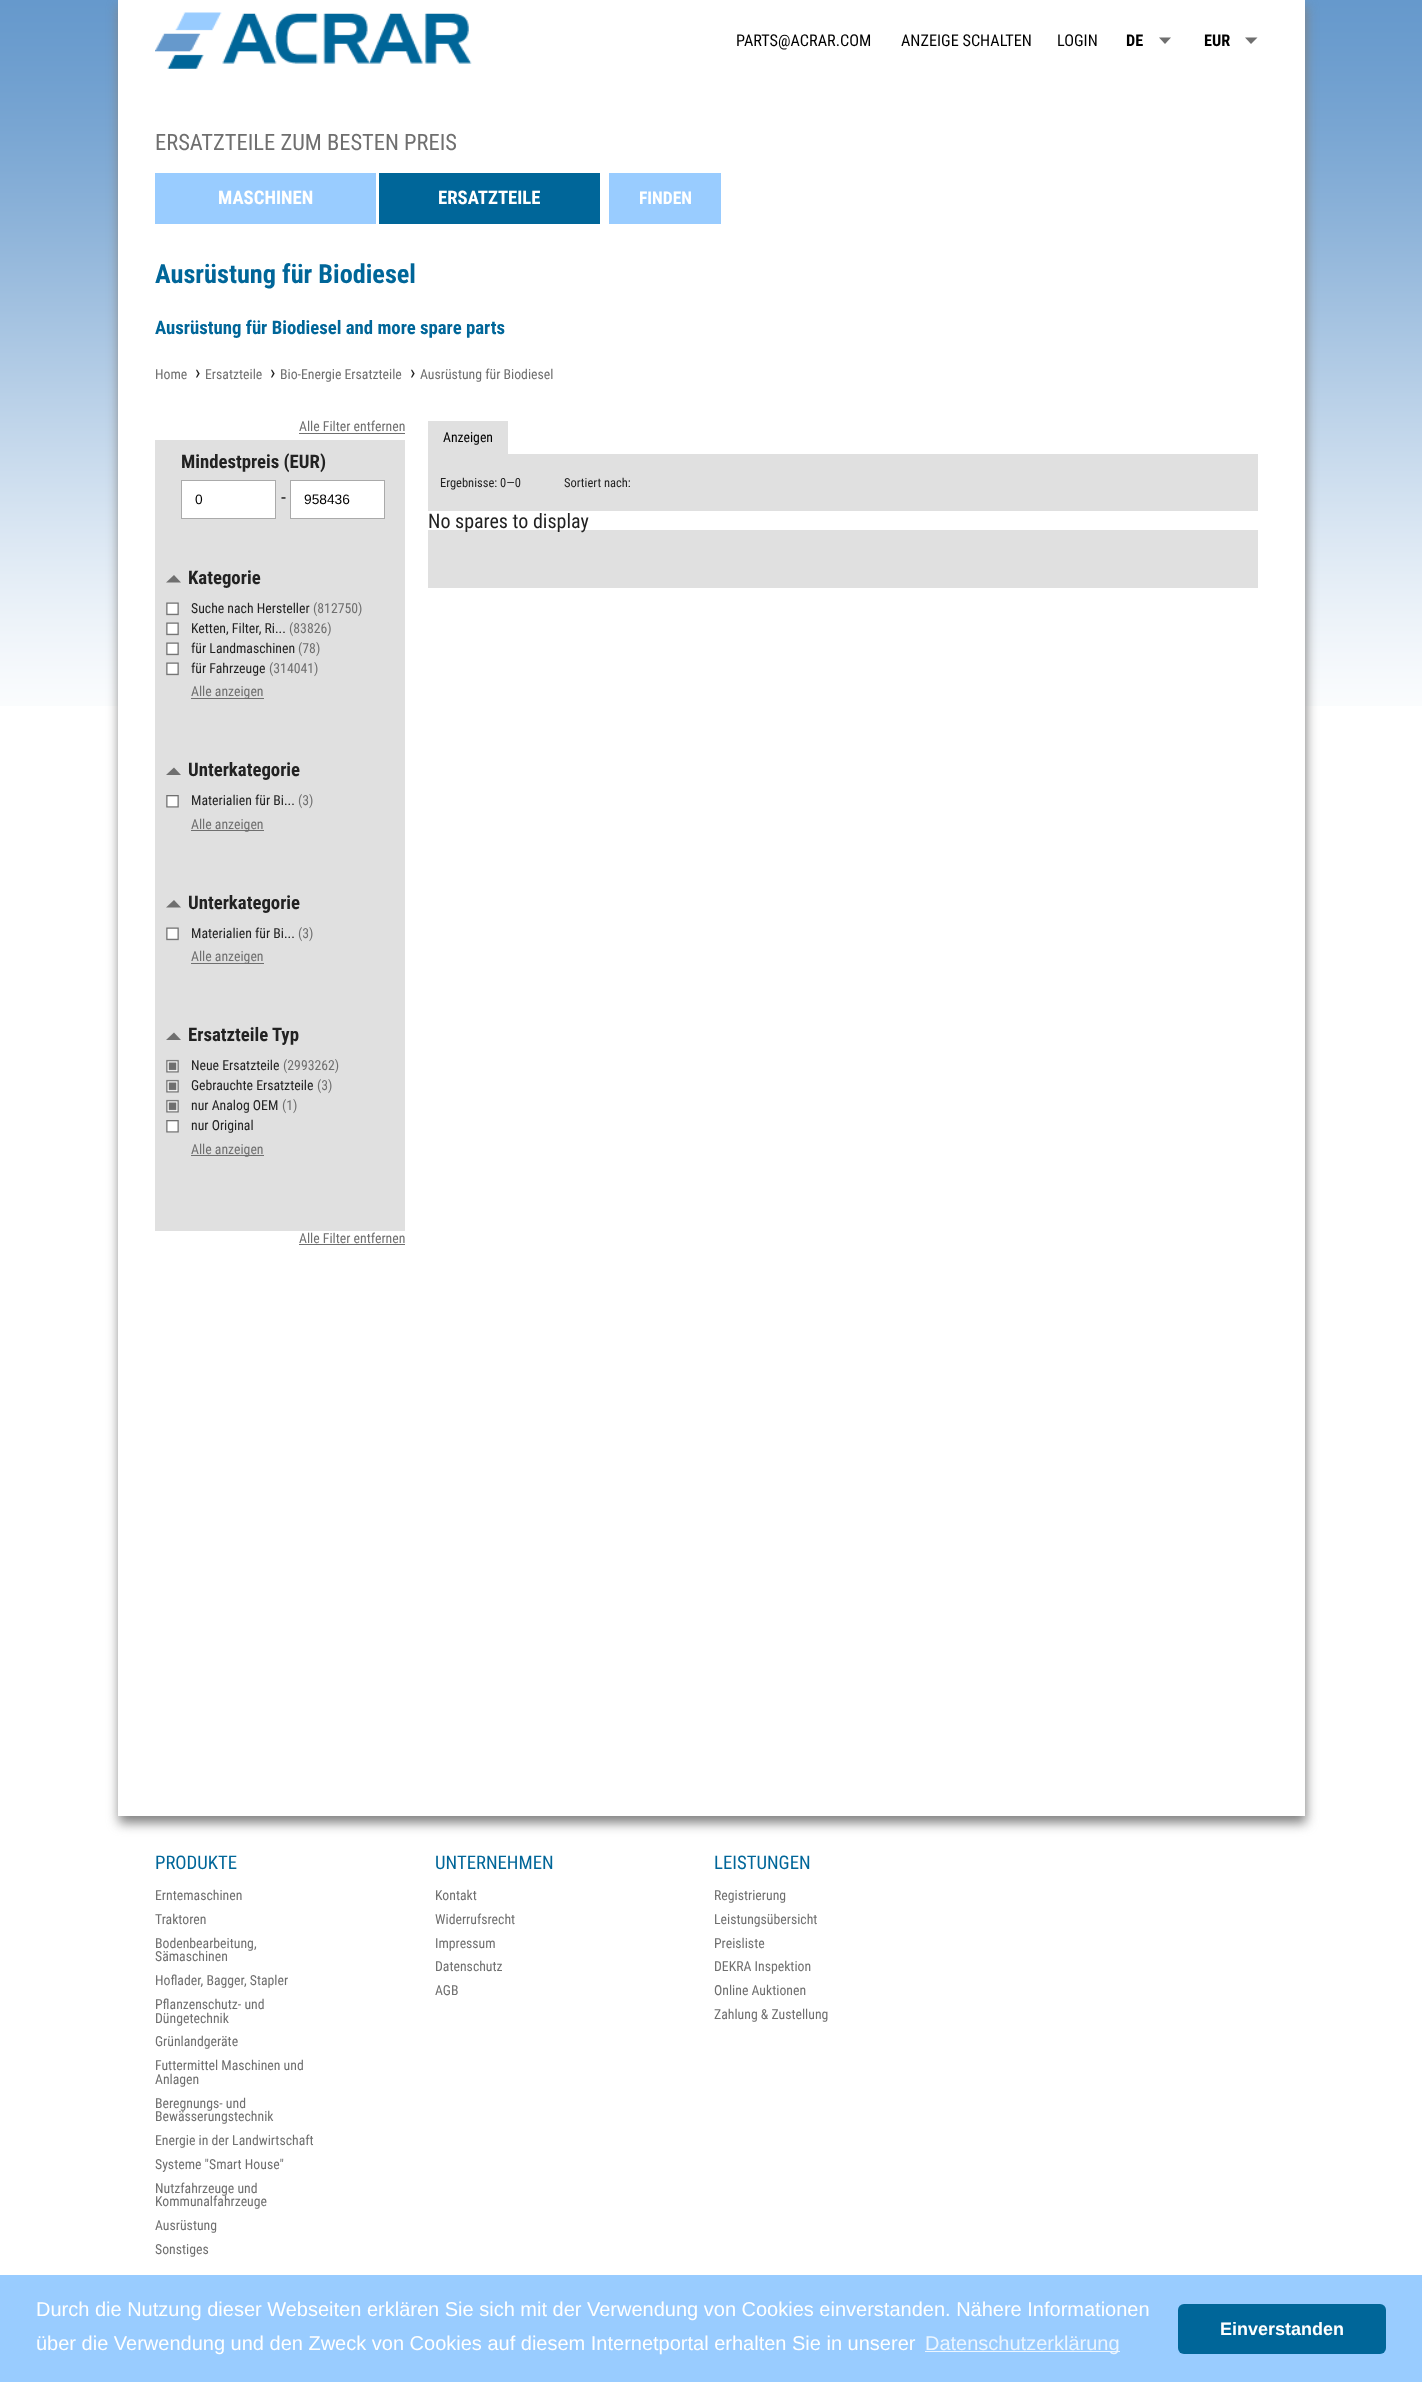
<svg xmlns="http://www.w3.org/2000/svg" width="1422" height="2382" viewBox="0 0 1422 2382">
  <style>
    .t1 { font: 16.25px Roboto Condensed; fill: #000; }
    .t2 { font: bold 16.25px Roboto Condensed; fill: #000; }
    .t3 { font: 22.5px Roboto Condensed; fill: #6f6f6f; }
    .t4 { font: bold 18.75px Roboto Condensed; fill: #fff; }
    .t5 { font: bold 17.5px Roboto Condensed; fill: #fff; }
    .t6 { font: bold 26.25px Roboto Condensed; fill: #069; }
    .t7 { font: bold 18.75px Roboto Condensed; fill: #069; }
    .t8 { font: 13.75px Roboto Condensed; fill: #6f6f6f; }
    .t9 { font: 20px Roboto Condensed; fill: #222; }
    .t10 { font: bold 18.75px Roboto Condensed; fill: #222; }
    .t11 { font: 13.75px Liberation Sans; fill: #000; }
    .t12 { font: 13.75px Roboto Condensed; fill: #222; }
    .t13 { font: 13.75px Roboto Condensed; fill: #000; }
    .t14 { font: 12.5px Roboto Condensed; fill: #222; }
    .t15 { font: 18.75px Roboto Condensed; fill: #069; }
    .t16 { font: 20px Liberation Sans; fill: #fff; }
    .t17 { font: 20px Liberation Sans; fill: #ebf5ff; }
    .t18 { font: bold 18px Liberation Sans; fill: #fff; }
  </style>
  <rect width="100%" height="100%" fill="#fff"/>
  <image x="0" y="0" width="1422" height="706" href="images/1.png"/>
  <rect x="119" y="6" width="1187" height="1817" fill="#808080" filter="blur(6px)"/>
  <rect x="118" y="0" width="1187" height="1816" fill="#fff"/>
  <image x="155" y="12" width="317" height="57" href="images/2.png"/>
  <text x="736" y="46" class="t1">PARTS@ACRAR.COM</text>
  <text x="901" y="46" class="t1">ANZEIGE SCHALTEN</text>
  <text x="1057" y="46" class="t1">LOGIN</text>
  <text x="1126" y="46" class="t2">DE</text>
  <path d="M1159 37.5H1171L1165 44Z" fill="#6f6f6f"/>
  <text x="1204" y="46" class="t2">EUR</text>
  <path d="M1245 37.5H1257.5L1251 44Z" fill="#6f6f6f"/>
  <text x="155" y="150" class="t3">ERSATZTEILE ZUM BESTEN PREIS</text>
  <rect x="155" y="173" width="221" height="51" fill="#9cf"/>
  <text x="218" y="204" class="t4">MASCHINEN</text>
  <rect x="379" y="173" width="221" height="51" fill="#069"/>
  <text x="438" y="204" class="t4">ERSATZTEILE</text>
  <rect x="609" y="173" width="112" height="51" fill="#9cf"/>
  <text x="639" y="204" class="t5">FINDEN</text>
  <text x="155" y="283" class="t6">Ausrüstung für Biodiesel</text>
  <text x="155" y="334" class="t7">Ausrüstung für Biodiesel and more spare parts</text>
  <text x="155" y="379" class="t8">Home</text>
  <text x="195" y="379" class="t9">›</text>
  <text x="205" y="379" class="t8">Ersatzteile</text>
  <text x="270" y="379" class="t9">›</text>
  <text x="280" y="379" class="t8">Bio-Energie Ersatzteile</text>
  <text x="410" y="379" class="t9">›</text>
  <text x="420" y="379" class="t8">Ausrüstung für Biodiesel</text>
  <text x="299" y="431" class="t8">Alle Filter entfernen</text>
  <rect x="299" y="433" width="106" height="1" fill="#6f6f6f"/>
  <rect x="155" y="440" width="250" height="791" fill="#e0e0e0"/>
  <text x="181" y="468" class="t10">Mindestpreis (EUR)</text>
  <rect x="181.5" y="480.5" width="94" height="38" fill="#fff" stroke="#aaa"/>
  <text x="195" y="504" class="t11">0</text>
  <text x="281" y="504" class="t9">-</text>
  <rect x="290.5" y="480.5" width="94" height="38" fill="#fff" stroke="#aaa"/>
  <text x="304" y="504" class="t11">958436</text>
  <path d="M181 582.5H166L174 575Z" fill="#6f6f6f"/>
  <text x="188" y="584" class="t10">Kategorie</text>
  <image x="166" y="602" width="13" height="14" href="images/3.png"/>
  <text x="191" y="613" class="t12">Suche nach Hersteller</text>
  <text x="313" y="613" class="t8">(812750)</text>
  <image x="166" y="622" width="13" height="14" href="images/3.png"/>
  <text x="191" y="633" class="t12">Ketten, Filter, Ri...</text>
  <text x="289" y="633" class="t8">(83826)</text>
  <image x="166" y="642" width="13" height="14" href="images/3.png"/>
  <text x="191" y="653" class="t12">für Landmaschinen</text>
  <text x="298" y="653" class="t8">(78)</text>
  <image x="166" y="662" width="13" height="14" href="images/3.png"/>
  <text x="191" y="673" class="t12">für Fahrzeuge</text>
  <text x="269" y="673" class="t8">(314041)</text>
  <rect x="191" y="698" width="73" height="1" fill="#6f6f6f"/>
  <text x="191" y="696" class="t8">Alle anzeigen</text>
  <path d="M181 775H166L174 767.5Z" fill="#6f6f6f"/>
  <text x="188" y="776" class="t10">Unterkategorie</text>
  <image x="166" y="795" width="13" height="13" href="images/4.png"/>
  <text x="191" y="805" class="t12">Materialien für Bi...</text>
  <text x="298" y="805" class="t8">(3)</text>
  <rect x="191" y="830" width="73" height="1" fill="#6f6f6f"/>
  <text x="191" y="829" class="t8">Alle anzeigen</text>
  <path d="M181 907.5H166L174 900Z" fill="#6f6f6f"/>
  <text x="188" y="909" class="t10">Unterkategorie</text>
  <image x="166" y="927" width="13" height="14" href="images/3.png"/>
  <text x="191" y="938" class="t12">Materialien für Bi...</text>
  <text x="298" y="938" class="t8">(3)</text>
  <rect x="191" y="963" width="73" height="1" fill="#6f6f6f"/>
  <text x="191" y="961" class="t8">Alle anzeigen</text>
  <path d="M181 1040H166L174 1032.5Z" fill="#6f6f6f"/>
  <text x="188" y="1041" class="t10">Ersatzteile Typ</text>
  <image x="166" y="1059" width="13" height="14" href="images/5.png"/>
  <text x="191" y="1070" class="t12">Neue Ersatzteile</text>
  <text x="283" y="1070" class="t8">(2993262)</text>
  <image x="166" y="1079" width="13" height="14" href="images/5.png"/>
  <text x="191" y="1090" class="t12">Gebrauchte Ersatzteile</text>
  <text x="317" y="1090" class="t8">(3)</text>
  <image x="166" y="1099" width="13" height="14" href="images/5.png"/>
  <text x="191" y="1110" class="t12">nur Analog OEM</text>
  <text x="282" y="1110" class="t8">(1)</text>
  <image x="166" y="1120" width="13" height="13" href="images/4.png"/>
  <text x="191" y="1130" class="t12">nur Original</text>
  <rect x="191" y="1155" width="73" height="1" fill="#6f6f6f"/>
  <text x="191" y="1154" class="t8">Alle anzeigen</text>
  <text x="299" y="1243" class="t8">Alle Filter entfernen</text>
  <rect x="299" y="1244" width="106" height="1" fill="#6f6f6f"/>
  <rect x="428" y="421" width="80" height="33" fill="#e0e0e0"/>
  <text x="443" y="442" class="t13">Anzeigen</text>
  <rect x="428" y="454" width="830" height="57" fill="#e0e0e0"/>
  <text x="440" y="487" class="t14">Ergebnisse: 0—0</text>
  <text x="564" y="487" class="t14">Sortiert nach:</text>
  <rect x="428" y="530" width="830" height="58" fill="#e0e0e0"/>
  <text x="428" y="528" class="t9">No spares to display</text>
  <text x="155" y="1869" class="t15">PRODUKTE</text>
  <text x="155" y="1900" class="t8">Erntemaschinen</text>
  <text x="155" y="1924" class="t8">Traktoren</text>
  <text x="155" y="1948" class="t8">Bodenbearbeitung,</text>
  <text x="155" y="1961" class="t8">Sämaschinen</text>
  <text x="155" y="1985" class="t8">Hoflader, Bagger, Stapler</text>
  <text x="155" y="2009" class="t8">Pflanzenschutz- und</text>
  <text x="155" y="2023" class="t8">Düngetechnik</text>
  <text x="155" y="2046" class="t8">Grünlandgeräte</text>
  <text x="155" y="2070" class="t8">Futtermittel Maschinen und</text>
  <text x="155" y="2084" class="t8">Anlagen</text>
  <text x="155" y="2108" class="t8">Beregnungs- und</text>
  <text x="155" y="2121" class="t8">Bewässerungstechnik</text>
  <text x="155" y="2145" class="t8">Energie in der Landwirtschaft</text>
  <text x="155" y="2169" class="t8">Systeme "Smart House"</text>
  <text x="155" y="2193" class="t8">Nutzfahrzeuge und</text>
  <text x="155" y="2206" class="t8">Kommunalfahrzeuge</text>
  <text x="155" y="2230" class="t8">Ausrüstung</text>
  <text x="155" y="2254" class="t8">Sonstiges</text>
  <text x="435" y="1869" class="t15">UNTERNEHMEN</text>
  <text x="435" y="1900" class="t8">Kontakt</text>
  <text x="435" y="1924" class="t8">Widerrufsrecht</text>
  <text x="435" y="1948" class="t8">Impressum</text>
  <text x="435" y="1971" class="t8">Datenschutz</text>
  <text x="435" y="1995" class="t8">AGB</text>
  <text x="714" y="1869" class="t15">LEISTUNGEN</text>
  <text x="714" y="1900" class="t8">Registrierung</text>
  <text x="714" y="1924" class="t8">Leistungsübersicht</text>
  <text x="714" y="1948" class="t8">Preisliste</text>
  <text x="714" y="1971" class="t8">DEKRA Inspektion</text>
  <text x="714" y="1995" class="t8">Online Auktionen</text>
  <text x="714" y="2019" class="t8">Zahlung &amp; Zustellung</text>
  <rect x="0" y="2275" width="1422" height="107" fill="#9cf"/>
  <text x="36" y="2316" class="t16">Durch die Nutzung dieser Webseiten erklären Sie sich mit der Verwendung von Cookies einverstanden. Nähere Informationen</text>
  <text x="36" y="2350" class="t16">über die Verwendung und den Zweck von Cookies auf diesem Internetportal erhalten Sie in unserer</text>
  <rect x="925" y="2351" width="195" height="1" fill="#ebf5ff"/>
  <text x="925" y="2350" class="t17">Datenschutzerklärung</text>
  <rect x="1178" y="2304" width="208" height="50" rx="6" fill="#069"/>
  <text x="1220" y="2335" class="t18">Einverstanden</text>
</svg>
